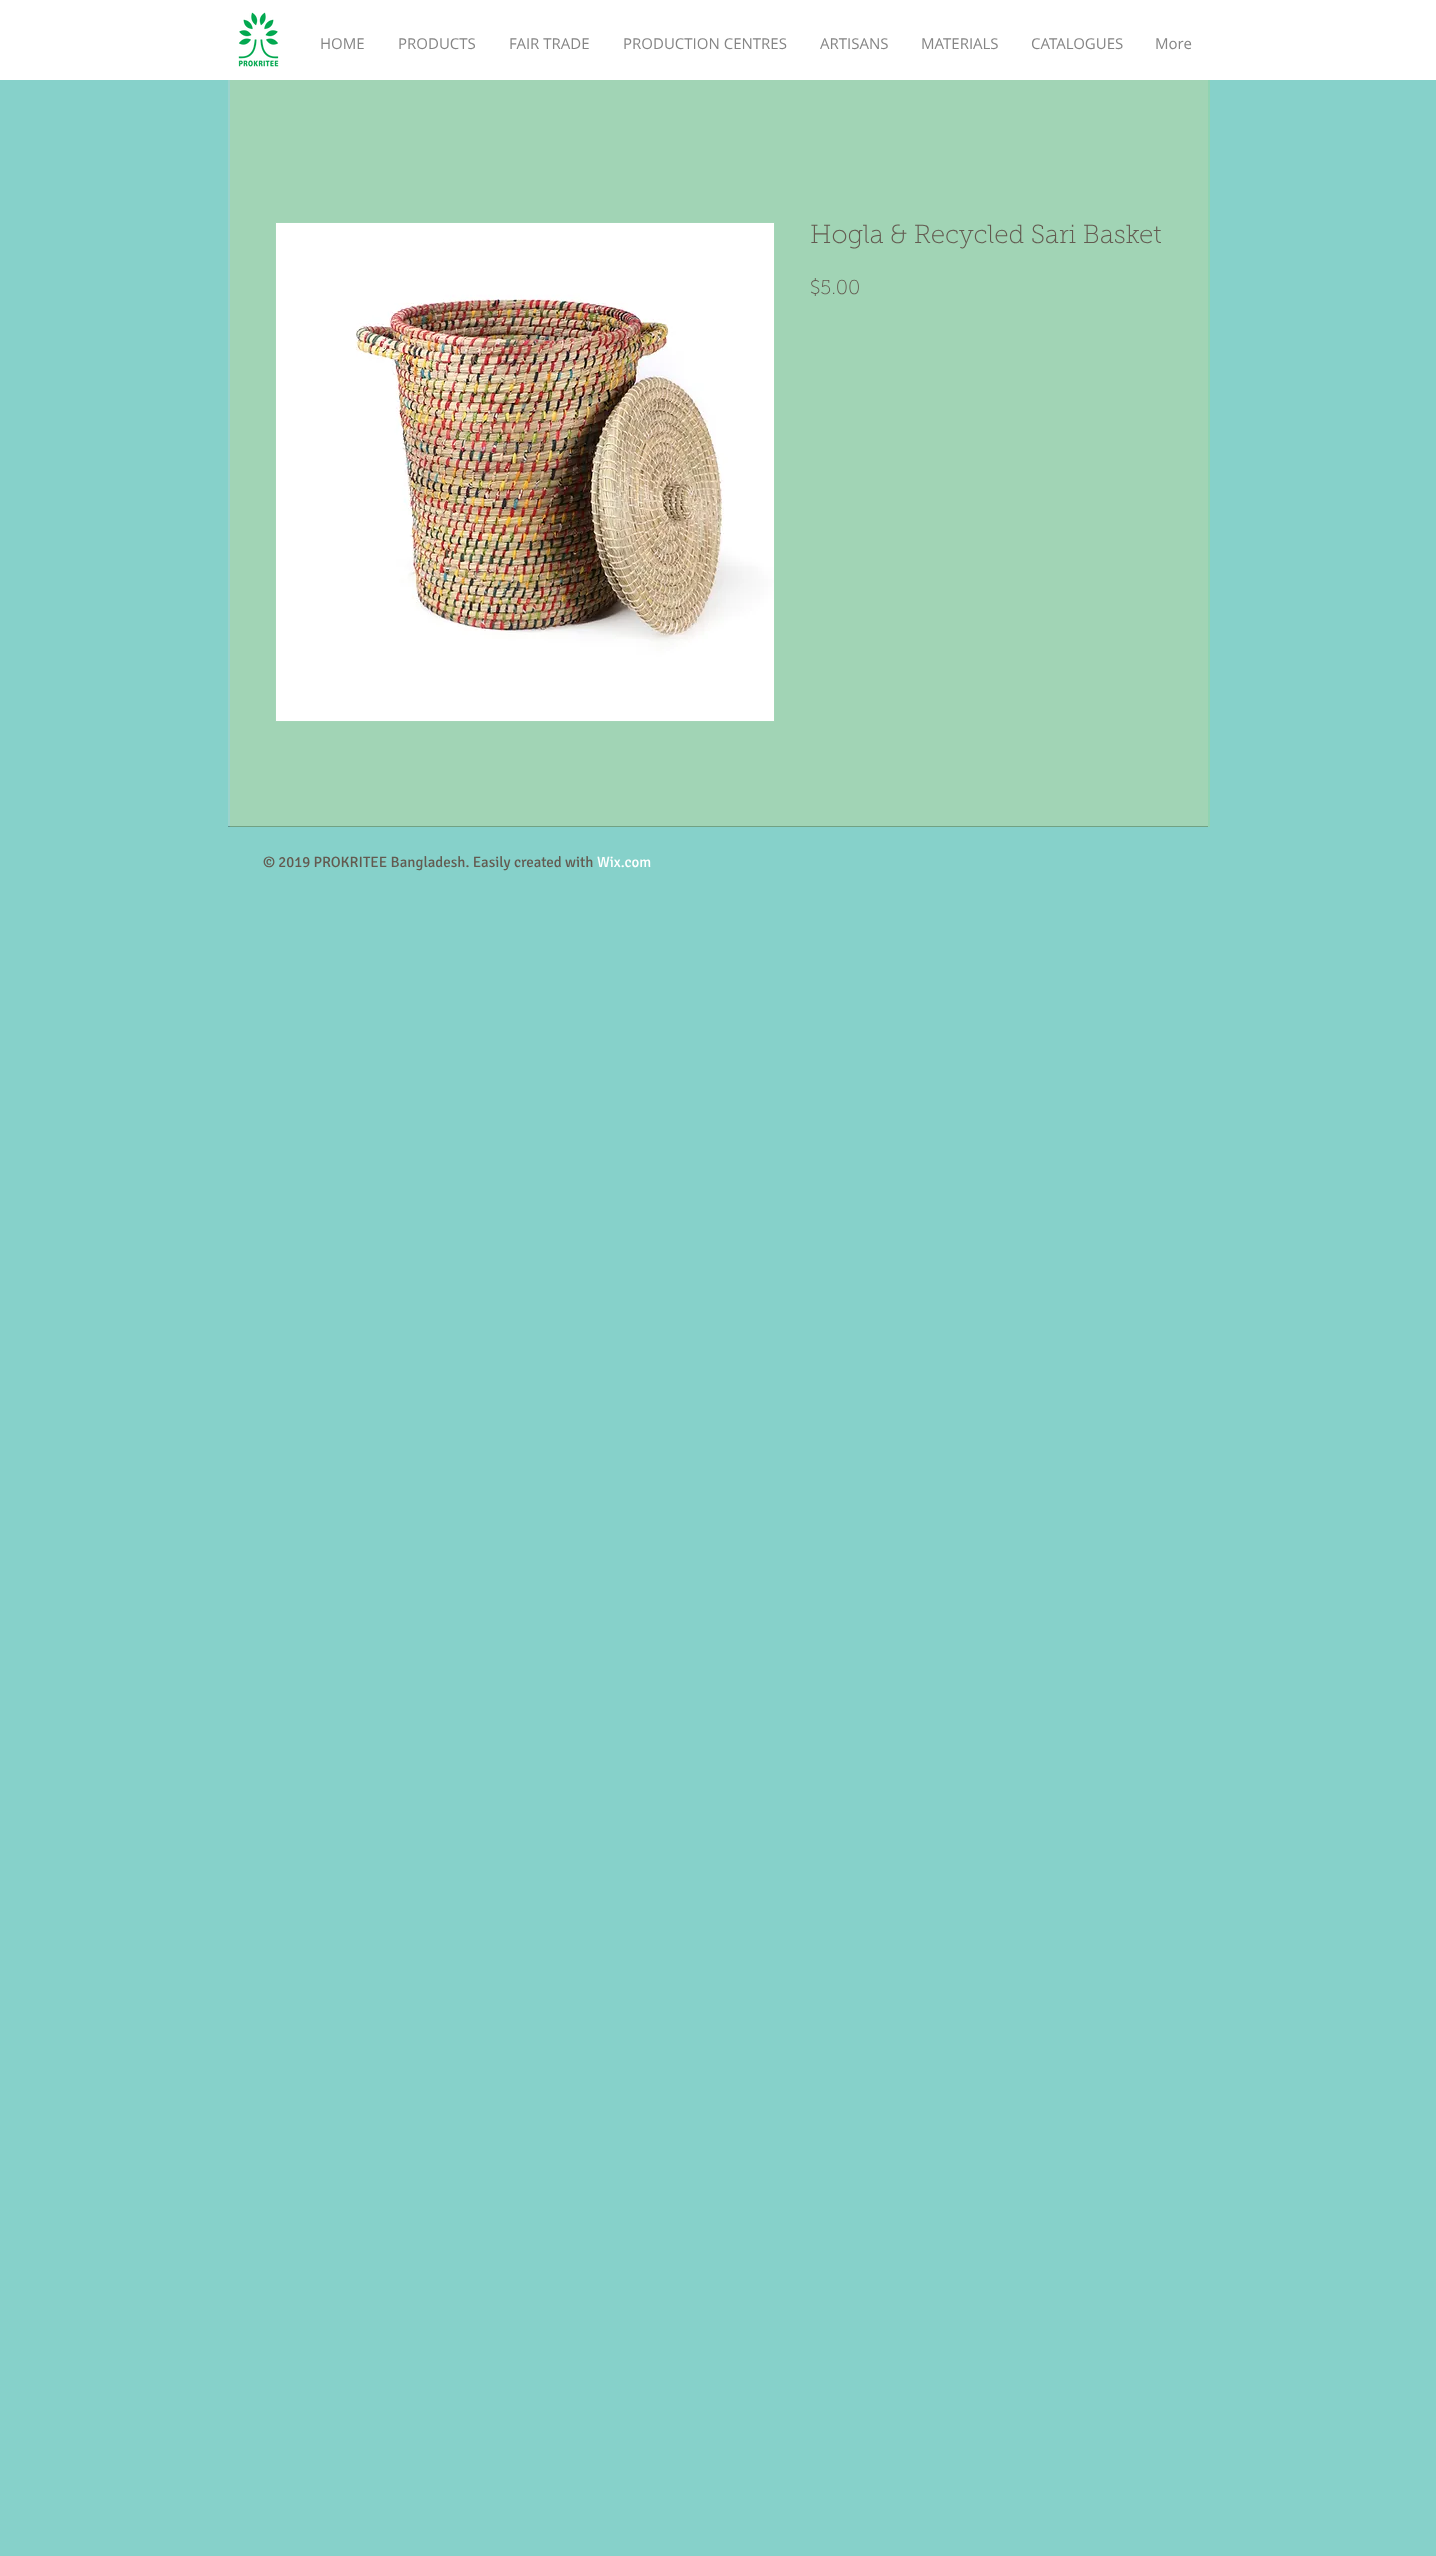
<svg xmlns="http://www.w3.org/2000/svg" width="1436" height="2556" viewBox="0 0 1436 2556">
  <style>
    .t1 { font: 15px Open Sans; fill: #858585; }
    .t2 { font: 100 26px 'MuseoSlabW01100'; fill: #635a50; }
    .t3 { font: 100 20px 'MuseoSlabW01100'; fill: #635a50; }
    .t4 { font: 15px Signika; fill: #635a50; }
    .t5 { font: 15px Signika; fill: #fff; }
  </style>
  <rect width="100%" height="100%" fill="#86d1ca"/>
  <rect x="228" y="80" width="980" height="747" fill="#0000004a" filter="blur(0.5px)"/>
  <rect x="0" y="0" width="1436" height="80" fill="#fff"/>
  <image x="238" y="12" width="41" height="55" href="images/1.png"/>
  <text x="320" y="49" class="t1">HOME</text>
  <text x="398" y="49" class="t1">PRODUCTS</text>
  <text x="509" y="49" class="t1">FAIR TRADE</text>
  <text x="623" y="49" class="t1">PRODUCTION CENTRES</text>
  <text x="820" y="49" class="t1">ARTISANS</text>
  <text x="921" y="49" class="t1">MATERIALS</text>
  <text x="1031" y="49" class="t1">CATALOGUES</text>
  <text x="1155" y="49" class="t1">More</text>
  <rect x="228" y="80" width="980" height="746" fill="#9bd3cd"/>
  <rect x="230" y="80" width="980" height="747" fill="#bada5533"/>
  <rect x="275.5" y="222.5" width="499" height="499" fill="none" stroke="#a4d5b7"/>
  <image x="276" y="223" width="498" height="498" href="images/2.png"/>
  <text x="810" y="243" class="t2">Hogla &amp; Recycled Sari Basket</text>
  <text x="810" y="294" class="t3">$5.00</text>
  <text x="263" y="867" class="t4">© 2019 PROKRITEE Bangladesh. Easily created with</text>
  <text x="597" y="867" class="t5">Wix.com</text>
</svg>
